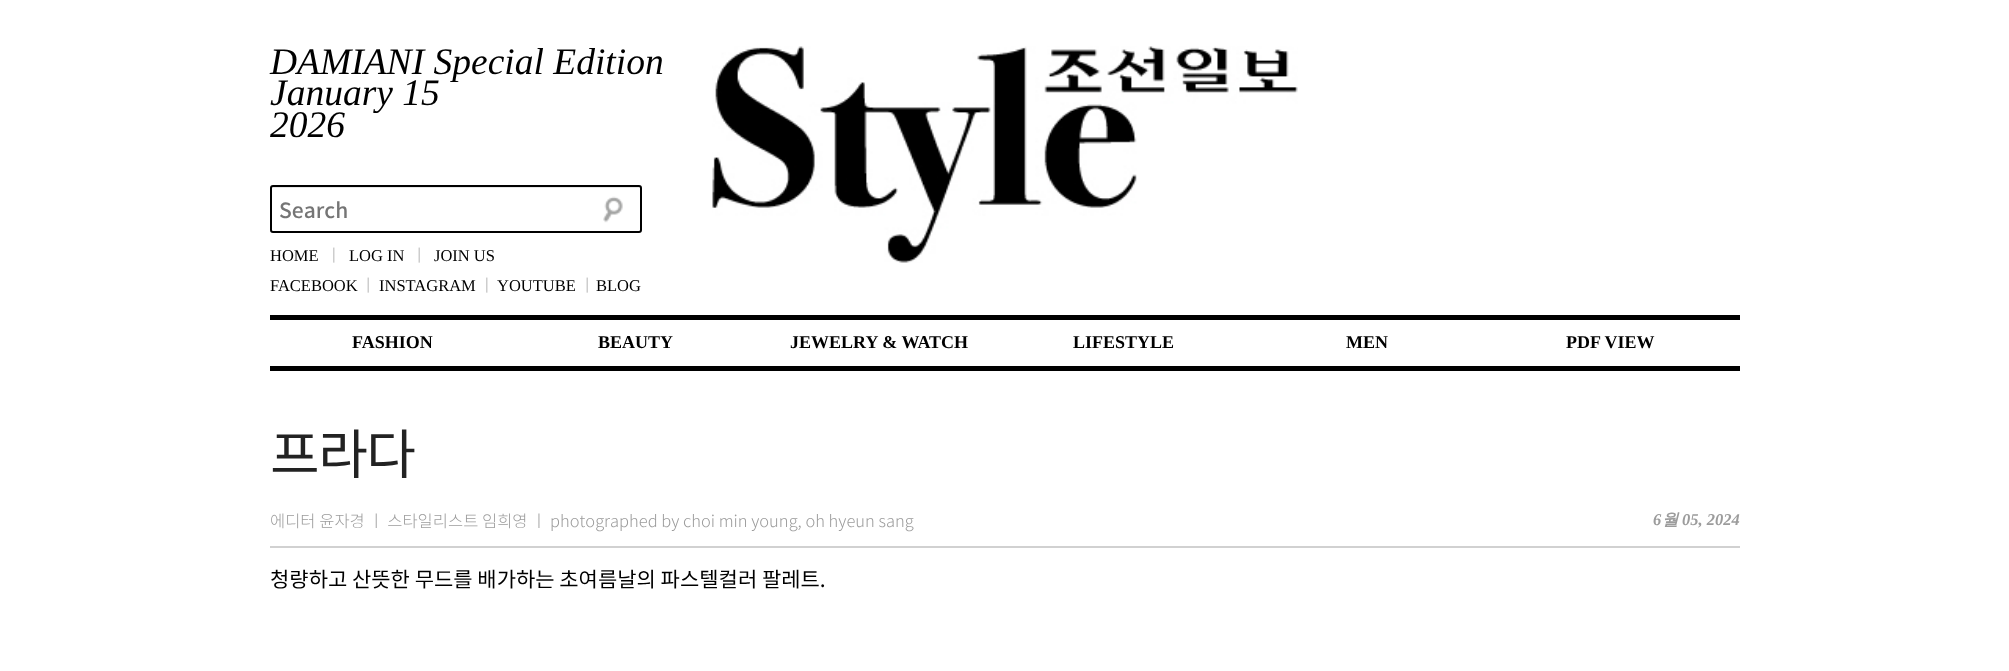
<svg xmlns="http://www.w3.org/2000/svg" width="2009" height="671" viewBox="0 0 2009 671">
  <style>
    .t1 { font: italic 37.5px Liberation Serif; fill: #000; }
    .t2 { font: 500 21px Noto Sans KR; fill: #757575; }
    .t3 { font: 16.5px Liberation Serif; fill: #000; }
    .t4 { font: bold 18px Liberation Serif; fill: #000; }
    .t5 { font: 54px Noto Sans KR; letter-spacing: -1.5px; fill: #222; }
    .t6 { font: 300 16.5px Noto Sans KR; fill: #9c9c9c; }
    .t7 { font: italic bold 16.5px Liberation Serif; fill: #9c9c9c; }
    .t8 { font: italic bold 16.5px WenQuanYi Zen Hei; fill: #9c9c9c; }
    .t9 { font: 21px Noto Sans KR; fill: #000; }
  </style>
  <rect width="100%" height="100%" fill="#fff"/>
  <text x="270" y="74" class="t1">DAMIANI Special Edition</text>
  <text x="270" y="105" class="t1">January 15</text>
  <text x="270" y="137" class="t1">2026</text>
  <image x="603" y="196" width="20" height="27" href="images/1.png"/>
  <path d="M273 188H639C640 188 640 188 640 189V231L641 230V187L640 186H274C272 186 272 188 272 189C272 188 272 188 273 188Z" fill="#e6e6e6"/>
  <rect x="271" y="186" width="370" height="46" rx="2" fill="none" stroke="#000" stroke-width="2"/>
  <text x="279" y="218" class="t2">Search</text>
  <text x="270" y="261" class="t3">HOME</text>
  <image x="333" y="247" width="2" height="16" href="images/2.png"/>
  <text x="349" y="261" class="t3">LOG IN</text>
  <image x="418" y="247" width="2" height="16" href="images/3.png"/>
  <text x="434" y="261" class="t3">JOIN US</text>
  <text x="270" y="291" class="t3">FACEBOOK</text>
  <image x="367" y="277" width="2" height="16" href="images/3.png"/>
  <text x="379" y="291" class="t3">INSTAGRAM</text>
  <image x="486" y="277" width="2" height="16" href="images/2.png"/>
  <text x="497" y="291" class="t3">YOUTUBE</text>
  <image x="586" y="277" width="2" height="16" href="images/3.png"/>
  <text x="596" y="291" class="t3">BLOG</text>
  <image x="712" y="46" width="586" height="217" href="images/4.png"/>
  <rect x="270" y="315" width="1470" height="5" fill="#000"/>
  <rect x="270" y="366" width="1470" height="5" fill="#000"/>
  <text x="352" y="348" class="t4">FASHION</text>
  <text x="598" y="348" class="t4">BEAUTY</text>
  <text x="790" y="348" class="t4">JEWELRY &amp; WATCH</text>
  <text x="1073" y="348" class="t4">LIFESTYLE</text>
  <text x="1346" y="348" class="t4">MEN</text>
  <text x="1566" y="348" class="t4">PDF VIEW</text>
  <text x="270" y="474" class="t5">프라다</text>
  <rect x="270" y="546" width="1470" height="2" fill="#d1d1d1"/>
  <text x="270" y="527" class="t6">에디터 윤자경 ㅣ 스타일리스트 임희영 ㅣ photographed by choi min young, oh hyeun sang</text>
  <text x="1653" y="525" class="t7">6</text>
  <text x="1662" y="525" class="t8">월</text>
  <text x="1682" y="525" class="t7">05, 2024</text>
  <text x="270" y="587" class="t9">청량하고 산뜻한 무드를 배가하는 초여름날의 파스텔컬러 팔레트.</text>
</svg>
